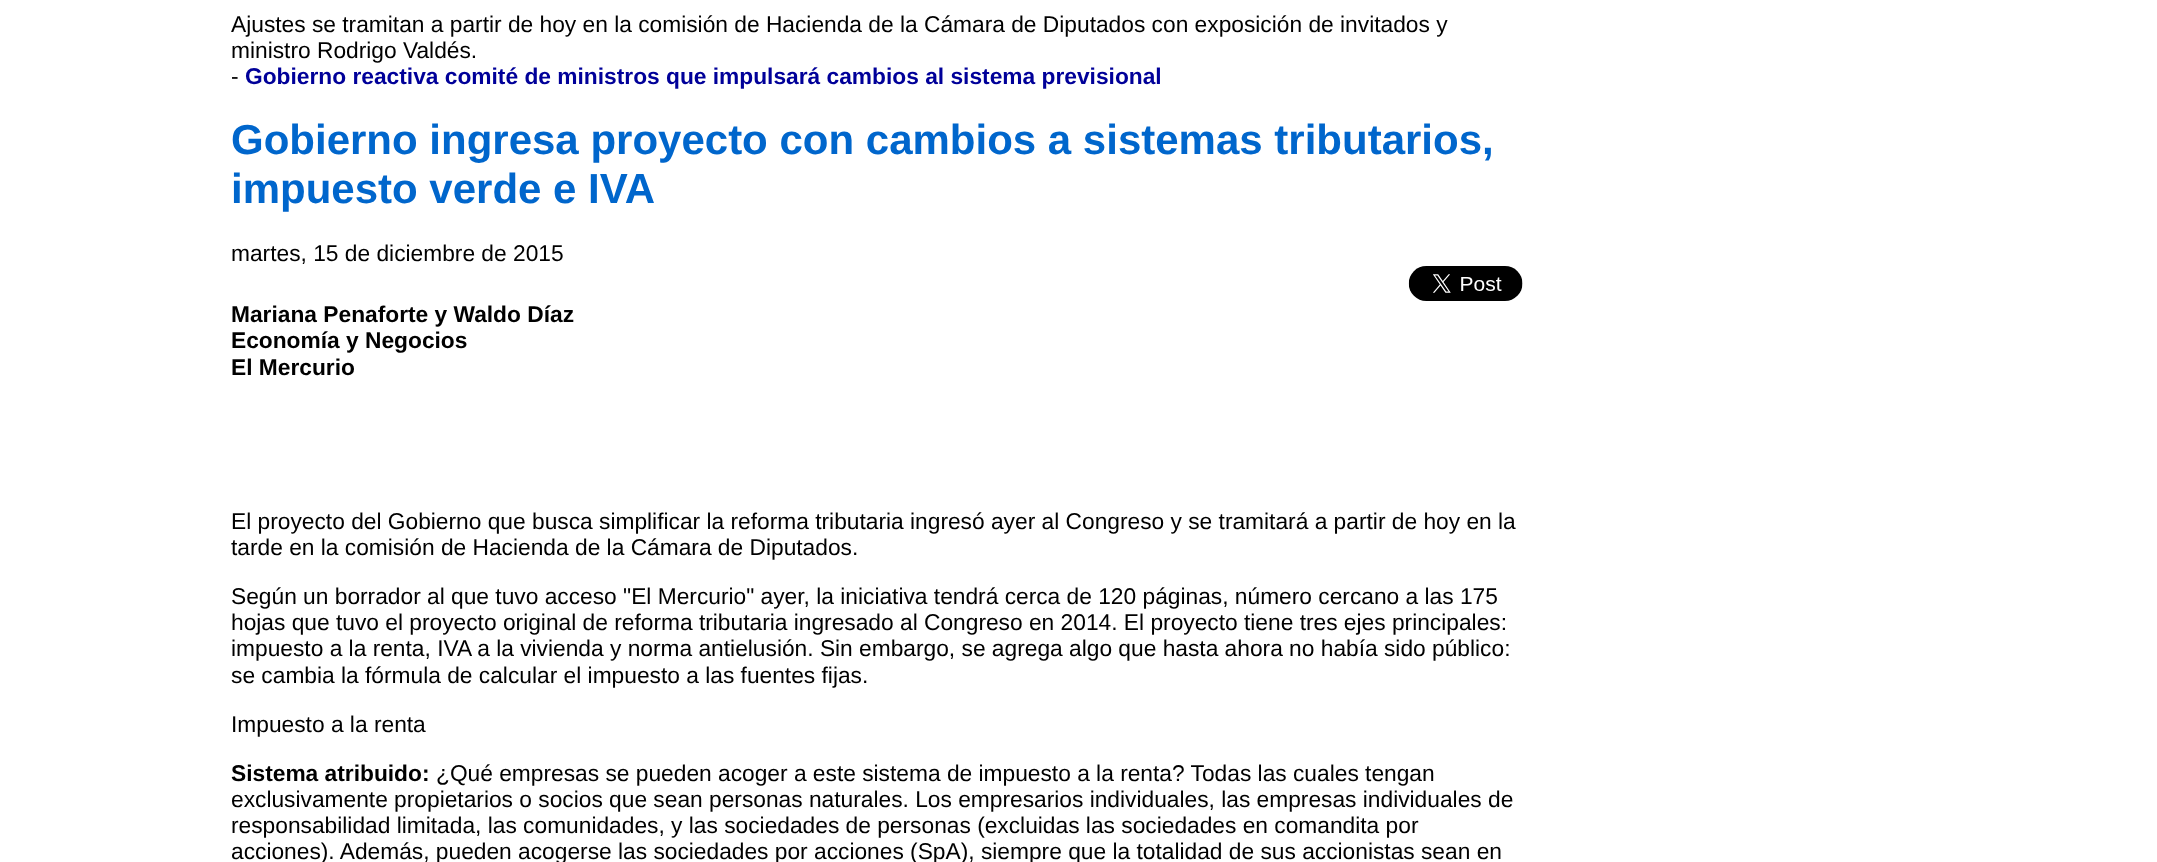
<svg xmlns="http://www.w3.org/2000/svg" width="2157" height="862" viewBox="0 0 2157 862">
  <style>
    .t1 { font: 22.75px Liberation Sans; fill: #000; }
    .t2 { font: bold 22.75px Liberation Sans; fill: #009; }
    .t3 { font: bold 42px Liberation Sans; fill: #06c; }
    .t4 { font: bold 22.75px Liberation Sans; fill: #000; }
  </style>
  <rect width="100%" height="100%" fill="#fff"/>
  <text x="231" y="32" class="t1">Ajustes se tramitan a partir de hoy en la comisión de Hacienda de la Cámara de Diputados con exposición de invitados y</text>
  <text x="231" y="58" class="t1">ministro Rodrigo Valdés.</text>
  <text x="231" y="84" class="t1">-</text>
  <text x="245" y="84" class="t2">Gobierno reactiva comité de ministros que impulsará cambios al sistema previsional</text>
  <text x="231" y="154" class="t3">Gobierno ingresa proyecto con cambios a sistemas tributarios,</text>
  <text x="231" y="203" class="t3">impuesto verde e IVA</text>
  <text x="231" y="261" class="t1">martes, 15 de diciembre de 2015</text>
  <image x="1408" y="266" width="115" height="35" href="images/1.png"/>
  <text x="231" y="322" class="t4">Mariana Penaforte y Waldo Díaz</text>
  <text x="231" y="348" class="t4">Economía y Negocios</text>
  <text x="231" y="375" class="t4">El Mercurio</text>
  <text x="231" y="529" class="t1">El proyecto del Gobierno que busca simplificar la reforma tributaria ingresó ayer al Congreso y se tramitará a partir de hoy en la</text>
  <text x="231" y="555" class="t1">tarde en la comisión de Hacienda de la Cámara de Diputados.</text>
  <text x="231" y="604" class="t1">Según un borrador al que tuvo acceso "El Mercurio" ayer, la iniciativa tendrá cerca de 120 páginas, número cercano a las 175</text>
  <text x="231" y="630" class="t1">hojas que tuvo el proyecto original de reforma tributaria ingresado al Congreso en 2014. El proyecto tiene tres ejes principales:</text>
  <text x="231" y="656" class="t1">impuesto a la renta, IVA a la vivienda y norma antielusión. Sin embargo, se agrega algo que hasta ahora no había sido público:</text>
  <text x="231" y="683" class="t1">se cambia la fórmula de calcular el impuesto a las fuentes fijas.</text>
  <text x="231" y="732" class="t1">Impuesto a la renta</text>
  <text x="231" y="781" class="t4">Sistema atribuido:</text>
  <text x="436" y="781" class="t1">¿Qué empresas se pueden acoger a este sistema de impuesto a la renta? Todas las cuales tengan</text>
  <text x="231" y="807" class="t1">exclusivamente propietarios o socios que sean personas naturales. Los empresarios individuales, las empresas individuales de</text>
  <text x="231" y="833" class="t1">responsabilidad limitada, las comunidades, y las sociedades de personas (excluidas las sociedades en comandita por</text>
  <text x="231" y="859" class="t1">acciones). Además, pueden acogerse las sociedades por acciones (SpA), siempre que la totalidad de sus accionistas sean en</text>
</svg>
